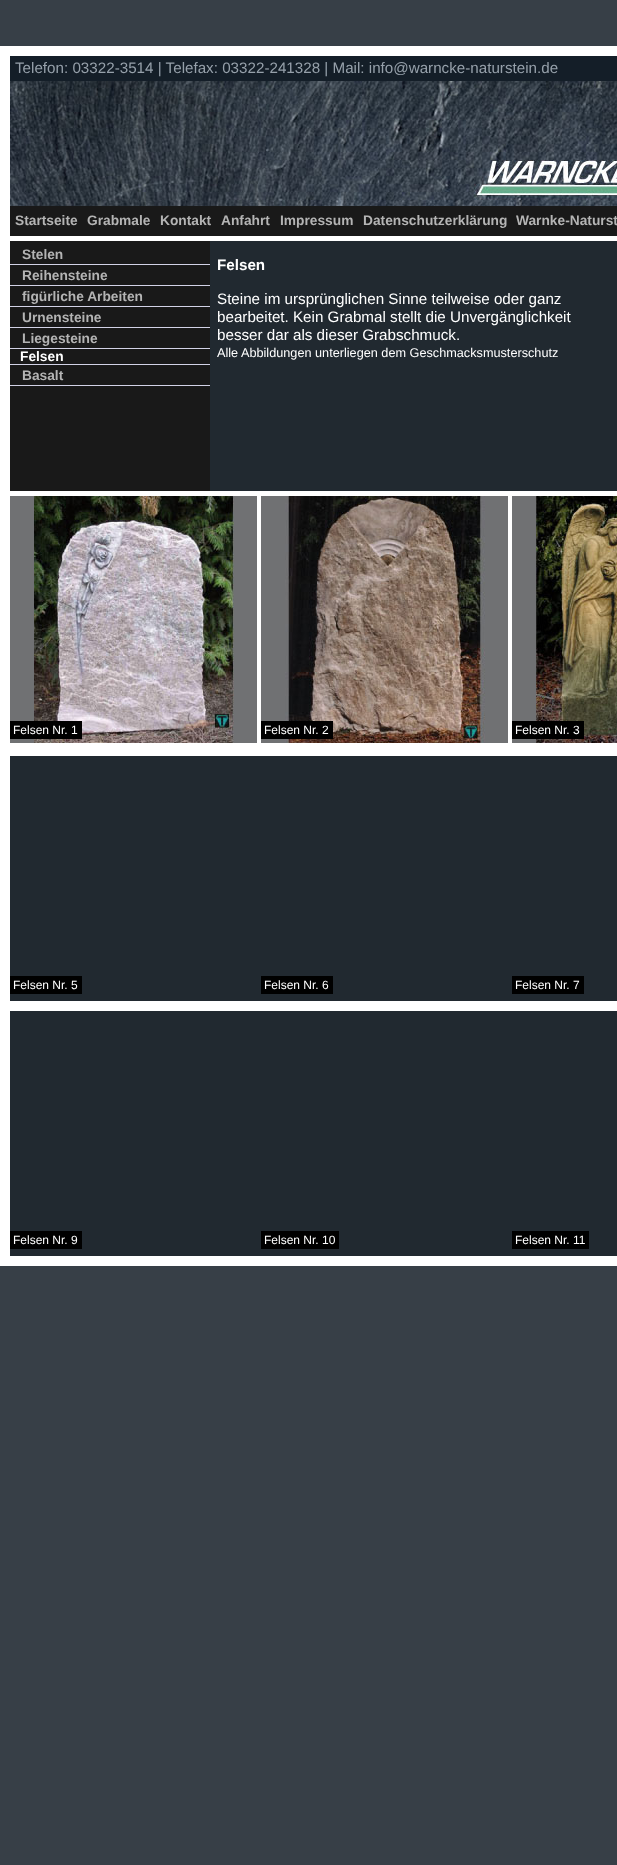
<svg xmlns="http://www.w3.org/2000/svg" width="617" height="1865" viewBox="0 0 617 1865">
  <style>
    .t1 { font: 15.2px Liberation Sans; fill: #96a0aa; }
    .t2 { font: bold 13.75px Liberation Sans; fill: #b4b4b4; }
    .t3 { font: bold 13.75px Liberation Sans; fill: #fff; }
    .t4 { font: bold 15.2px Liberation Sans; fill: #fff; }
    .t5 { font: 15.2px Liberation Sans; fill: #fff; }
    .t6 { font: 12.7px Liberation Sans; fill: #fff; }
    .t7 { font: 12px Liberation Sans; fill: #fff; }
  </style>
  <rect width="100%" height="100%" fill="#373f47"/>
  <rect x="0" y="46" width="617" height="1220" fill="#fff"/>
  <image x="10" y="81" width="607" height="125" href="images/1.png"/>
  <rect x="10" y="56" width="607" height="25" fill="#141e28"/>
  <text x="15" y="73" class="t1">Telefon: 03322-3514 | Telefax: 03322-241328 | Mail: info@warncke-naturstein.de</text>
  <rect x="10" y="206" width="607" height="30" fill="#191919"/>
  <text x="15" y="225" class="t2">Startseite</text>
  <text x="87" y="225" class="t2">Grabmale</text>
  <text x="160" y="225" class="t2">Kontakt</text>
  <text x="221" y="225" class="t2">Anfahrt</text>
  <text x="280" y="225" class="t2">Impressum</text>
  <text x="363" y="225" class="t2">Datenschutzerklärung</text>
  <text x="516" y="225" class="t2">Warnke-Naturst</text>
  <rect x="210" y="241" width="407" height="250" fill="#212930"/>
  <rect x="10" y="241" width="200" height="250" fill="#191919"/>
  <rect x="10" y="264" width="200" height="1" fill="#d2d2e6"/>
  <text x="22" y="259" class="t2">Stelen</text>
  <rect x="10" y="285" width="200" height="1" fill="#d2d2e6"/>
  <text x="22" y="280" class="t2">Reihensteine</text>
  <rect x="10" y="306" width="200" height="1" fill="#d2d2e6"/>
  <text x="22" y="301" class="t2">figürliche Arbeiten</text>
  <rect x="10" y="327" width="200" height="1" fill="#d2d2e6"/>
  <text x="22" y="322" class="t2">Urnensteine</text>
  <rect x="10" y="348" width="200" height="1" fill="#d2d2e6"/>
  <text x="22" y="343" class="t2">Liegesteine</text>
  <rect x="10" y="364" width="200" height="1" fill="#d2d2e6"/>
  <text x="20" y="361" class="t3">Felsen</text>
  <rect x="10" y="385" width="200" height="1" fill="#d2d2e6"/>
  <text x="22" y="380" class="t2">Basalt</text>
  <text x="217" y="270" class="t4">Felsen</text>
  <text x="217" y="304" class="t5">Steine im ursprünglichen Sinne teilweise oder ganz</text>
  <text x="217" y="322" class="t5">bearbeitet. Kein Grabmal stellt die Unvergänglichkeit</text>
  <text x="217" y="340" class="t5">besser dar als dieser Grabschmuck.</text>
  <text x="217" y="357" class="t6">Alle Abbildungen unterliegen dem Geschmacksmusterschutz</text>
  <image x="10" y="496" width="247" height="247" href="images/2.png"/>
  <rect x="10" y="721" width="72" height="18" fill="#000"/>
  <text x="13" y="734" class="t7">Felsen Nr. 1</text>
  <image x="261" y="496" width="247" height="247" href="images/3.png"/>
  <rect x="261" y="721" width="72" height="18" fill="#000"/>
  <text x="264" y="734" class="t7">Felsen Nr. 2</text>
  <image x="512" y="496" width="105" height="247" href="images/4.png"/>
  <rect x="512" y="721" width="72" height="18" fill="#000"/>
  <text x="515" y="734" class="t7">Felsen Nr. 3</text>
  <rect x="10" y="756" width="607" height="245" fill="#212930"/>
  <rect x="10" y="976" width="72" height="18" fill="#000"/>
  <text x="13" y="989" class="t7">Felsen Nr. 5</text>
  <rect x="261" y="976" width="72" height="18" fill="#000"/>
  <text x="264" y="989" class="t7">Felsen Nr. 6</text>
  <rect x="512" y="976" width="72" height="18" fill="#000"/>
  <text x="515" y="989" class="t7">Felsen Nr. 7</text>
  <rect x="10" y="1011" width="607" height="245" fill="#212930"/>
  <rect x="10" y="1231" width="72" height="18" fill="#000"/>
  <text x="13" y="1244" class="t7">Felsen Nr. 9</text>
  <rect x="261" y="1231" width="78" height="18" fill="#000"/>
  <text x="264" y="1244" class="t7">Felsen Nr. 10</text>
  <rect x="512" y="1231" width="77" height="18" fill="#000"/>
  <text x="515" y="1244" class="t7">Felsen Nr. 11</text>
</svg>
